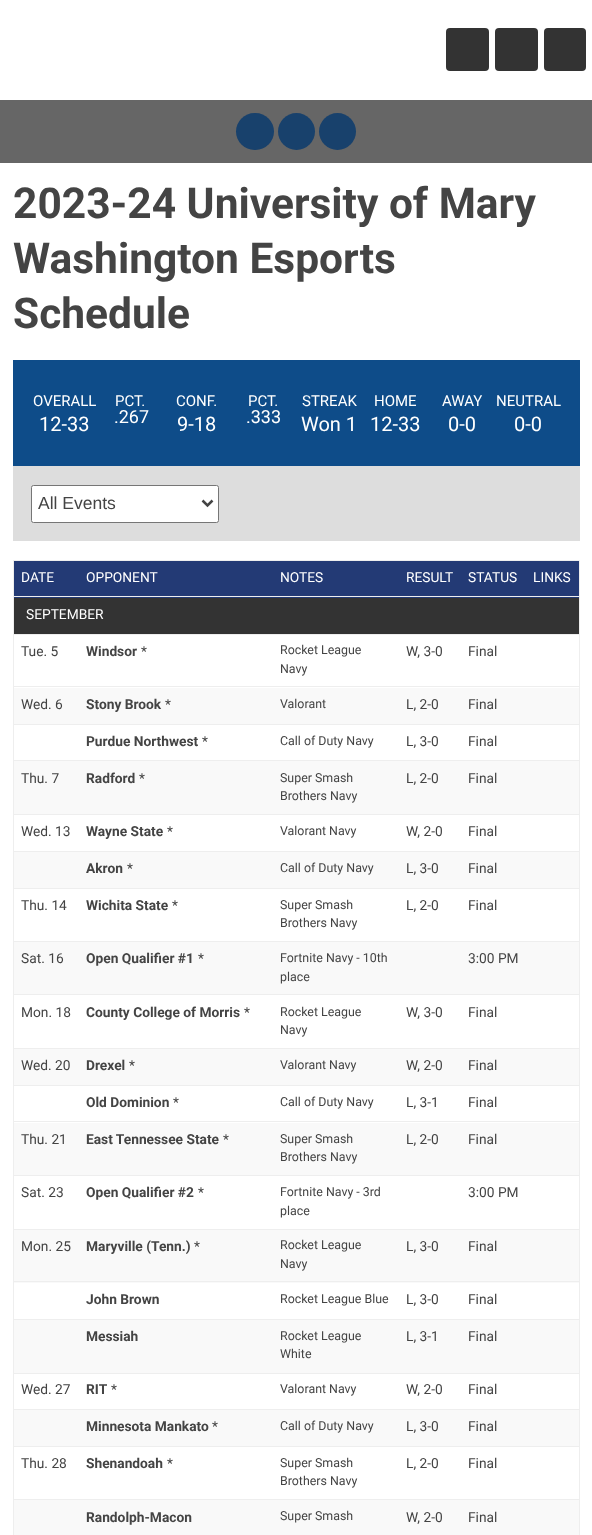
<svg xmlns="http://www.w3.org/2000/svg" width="592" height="1535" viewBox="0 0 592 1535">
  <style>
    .t1 { font: bold 42.5px Roboto; fill: #444; }
    .t2 { font: 15px Roboto; fill: #fff; }
    .t3 { font: 20px Roboto; fill: #fff; }
    .t4 { font: 18px Roboto; fill: #fff; }
    .t5 { font: 17.5px Liberation Sans; fill: #444; }
    .t6 { font: 13.75px Roboto; fill: #fff; }
    .t7 { font: 13.75px Roboto; fill: #444; }
    .t8 { font: bold 13.75px Roboto; fill: #444; }
    .t9 { font: 12.4px Roboto; fill: #444; }
  </style>
  <rect width="100%" height="100%" fill="#fff"/>
  <rect x="446" y="28" width="43" height="43" rx="4" fill="#333"/>
  <rect x="495" y="28" width="43" height="43" rx="4" fill="#333"/>
  <rect x="544" y="28" width="42" height="43" rx="4" fill="#333"/>
  <rect x="0" y="100" width="592" height="63" fill="#666"/>
  <rect x="236" y="113" width="38" height="37" rx="18.5" fill="#18416c"/>
  <circle cx="296.5" cy="131.5" r="18.5" fill="#18416c"/>
  <circle cx="337.5" cy="131.5" r="18.5" fill="#18416c"/>
  <text x="13" y="218" class="t1">2023-24 University of Mary</text>
  <text x="13" y="273" class="t1">Washington Esports</text>
  <text x="13" y="328" class="t1">Schedule</text>
  <rect x="13" y="360" width="567" height="106" fill="#0e4c89"/>
  <text x="33" y="406" class="t2">OVERALL</text>
  <text x="39" y="431" class="t3">12-33</text>
  <text x="115" y="406" class="t2">PCT.</text>
  <text x="114" y="423" class="t4">.267</text>
  <text x="176" y="406" class="t2">CONF.</text>
  <text x="177" y="431" class="t3">9-18</text>
  <text x="248" y="406" class="t2">PCT.</text>
  <text x="246" y="423" class="t4">.333</text>
  <text x="302" y="406" class="t2">STREAK</text>
  <text x="301" y="431" class="t3">Won 1</text>
  <text x="374" y="406" class="t2">HOME</text>
  <text x="370" y="431" class="t3">12-33</text>
  <text x="442" y="406" class="t2">AWAY</text>
  <text x="448" y="431" class="t3">0-0</text>
  <text x="496" y="406" class="t2">NEUTRAL</text>
  <text x="514" y="431" class="t3">0-0</text>
  <rect x="13" y="466" width="567" height="75" fill="#ddd"/>
  <rect x="31.5" y="485.5" width="187" height="37" rx="2" fill="#fff" stroke="#767676"/>
  <path d="M202.5 500.5L207.5 505.5L212.5 500.5" fill="none" stroke="#444" stroke-width="2.5"/>
  <text x="38" y="509" class="t5">All Events</text>
  <rect x="13" y="560" width="567" height="1" fill="#eee"/>
  <rect x="14" y="561" width="565" height="37" fill="#233a75"/>
  <rect x="13" y="596" width="567" height="1" fill="#eee"/>
  <rect x="13" y="634" width="567" height="1" fill="#eee"/>
  <rect x="13" y="686" width="567" height="1" fill="#eee"/>
  <rect x="13" y="724" width="567" height="1" fill="#eee"/>
  <rect x="13" y="760" width="567" height="1" fill="#eee"/>
  <rect x="13" y="814" width="567" height="1" fill="#eee"/>
  <rect x="13" y="851" width="567" height="1" fill="#eee"/>
  <rect x="13" y="888" width="567" height="1" fill="#eee"/>
  <rect x="13" y="941" width="567" height="1" fill="#eee"/>
  <rect x="13" y="994" width="567" height="1" fill="#eee"/>
  <rect x="13" y="1048" width="567" height="1" fill="#eee"/>
  <rect x="13" y="1085" width="567" height="1" fill="#eee"/>
  <rect x="13" y="1121" width="567" height="1" fill="#eee"/>
  <rect x="13" y="1175" width="567" height="1" fill="#eee"/>
  <rect x="13" y="1229" width="567" height="1" fill="#eee"/>
  <rect x="14" y="1230" width="565" height="53" fill="#f9f9f9"/>
  <rect x="13" y="1281" width="567" height="1" fill="#eee"/>
  <rect x="13" y="1319" width="567" height="1" fill="#eee"/>
  <rect x="13" y="1373" width="567" height="1" fill="#eee"/>
  <rect x="13" y="1409" width="567" height="1" fill="#eee"/>
  <rect x="13" y="1446" width="567" height="1" fill="#eee"/>
  <rect x="13" y="1499" width="567" height="1" fill="#eee"/>
  <rect x="579" y="1499" width="1" height="36" fill="#eee"/>
  <rect x="579" y="1446" width="1" height="54" fill="#eee"/>
  <rect x="579" y="1409" width="1" height="39" fill="#eee"/>
  <rect x="579" y="1373" width="1" height="37" fill="#eee"/>
  <rect x="579" y="1319" width="1" height="55" fill="#eee"/>
  <rect x="579" y="1281" width="1" height="39" fill="#eee"/>
  <rect x="579" y="1229" width="1" height="54" fill="#eee"/>
  <rect x="579" y="1175" width="1" height="55" fill="#eee"/>
  <rect x="579" y="1121" width="1" height="55" fill="#eee"/>
  <rect x="579" y="1085" width="1" height="38" fill="#eee"/>
  <rect x="579" y="1048" width="1" height="38" fill="#eee"/>
  <rect x="579" y="994" width="1" height="55" fill="#eee"/>
  <rect x="579" y="941" width="1" height="54" fill="#eee"/>
  <rect x="579" y="888" width="1" height="55" fill="#eee"/>
  <rect x="579" y="851" width="1" height="38" fill="#eee"/>
  <rect x="579" y="814" width="1" height="39" fill="#eee"/>
  <rect x="579" y="760" width="1" height="55" fill="#eee"/>
  <rect x="579" y="724" width="1" height="37" fill="#eee"/>
  <rect x="579" y="686" width="1" height="39" fill="#eee"/>
  <rect x="579" y="634" width="1" height="54" fill="#eee"/>
  <rect x="579" y="596" width="1" height="39" fill="#eee"/>
  <rect x="579" y="560" width="1" height="38" fill="#eee"/>
  <rect x="13" y="1499" width="1" height="36" fill="#eee"/>
  <rect x="13" y="1446" width="1" height="54" fill="#eee"/>
  <rect x="13" y="1409" width="1" height="39" fill="#eee"/>
  <rect x="13" y="1373" width="1" height="37" fill="#eee"/>
  <rect x="13" y="1319" width="1" height="55" fill="#eee"/>
  <rect x="13" y="1281" width="1" height="39" fill="#eee"/>
  <rect x="13" y="1229" width="1" height="54" fill="#eee"/>
  <rect x="13" y="1175" width="1" height="55" fill="#eee"/>
  <rect x="13" y="1121" width="1" height="55" fill="#eee"/>
  <rect x="13" y="1085" width="1" height="38" fill="#eee"/>
  <rect x="13" y="1048" width="1" height="38" fill="#eee"/>
  <rect x="13" y="994" width="1" height="55" fill="#eee"/>
  <rect x="13" y="941" width="1" height="54" fill="#eee"/>
  <rect x="13" y="888" width="1" height="55" fill="#eee"/>
  <rect x="13" y="851" width="1" height="38" fill="#eee"/>
  <rect x="13" y="814" width="1" height="39" fill="#eee"/>
  <rect x="13" y="760" width="1" height="55" fill="#eee"/>
  <rect x="13" y="724" width="1" height="37" fill="#eee"/>
  <rect x="13" y="686" width="1" height="39" fill="#eee"/>
  <rect x="13" y="634" width="1" height="54" fill="#eee"/>
  <rect x="13" y="596" width="1" height="39" fill="#eee"/>
  <rect x="13" y="560" width="1" height="38" fill="#eee"/>
  <text x="21" y="582" class="t6">DATE</text>
  <text x="86" y="582" class="t6">OPPONENT</text>
  <text x="280" y="582" class="t6">NOTES</text>
  <text x="406" y="582" class="t6">RESULT</text>
  <text x="468" y="582" class="t6">STATUS</text>
  <text x="533" y="582" class="t6">LINKS</text>
  <rect x="14" y="598" width="565" height="36" fill="#333"/>
  <text x="26" y="619" class="t6">SEPTEMBER</text>
  <text x="21" y="656" class="t7">Tue. 5</text>
  <text x="86" y="656" class="t8">Windsor</text>
  <text x="141" y="656" class="t7">*</text>
  <text x="280" y="654" class="t9">Rocket League</text>
  <text x="280" y="673" class="t9">Navy</text>
  <text x="406" y="656" class="t7">W, 3-0</text>
  <text x="468" y="656" class="t7">Final</text>
  <rect x="14" y="688" width="565" height="36" fill="#f9f9f9"/>
  <text x="21" y="709" class="t7">Wed. 6</text>
  <text x="86" y="709" class="t8">Stony Brook</text>
  <text x="165" y="709" class="t7">*</text>
  <text x="280" y="708" class="t9">Valorant</text>
  <text x="406" y="709" class="t7">L, 2-0</text>
  <text x="468" y="709" class="t7">Final</text>
  <text x="86" y="746" class="t8">Purdue Northwest</text>
  <text x="202" y="746" class="t7">*</text>
  <text x="280" y="745" class="t9">Call of Duty Navy</text>
  <text x="406" y="746" class="t7">L, 3-0</text>
  <text x="468" y="746" class="t7">Final</text>
  <rect x="14" y="761" width="565" height="53" fill="#f9f9f9"/>
  <text x="21" y="783" class="t7">Thu. 7</text>
  <text x="86" y="783" class="t8">Radford</text>
  <text x="139" y="783" class="t7">*</text>
  <text x="280" y="782" class="t9">Super Smash</text>
  <text x="280" y="800" class="t9">Brothers Navy</text>
  <text x="406" y="783" class="t7">L, 2-0</text>
  <text x="468" y="783" class="t7">Final</text>
  <text x="21" y="836" class="t7">Wed. 13</text>
  <text x="86" y="836" class="t8">Wayne State</text>
  <text x="167" y="836" class="t7">*</text>
  <text x="280" y="835" class="t9">Valorant Navy</text>
  <text x="406" y="836" class="t7">W, 2-0</text>
  <text x="468" y="836" class="t7">Final</text>
  <rect x="14" y="852" width="565" height="36" fill="#f9f9f9"/>
  <text x="86" y="873" class="t8">Akron</text>
  <text x="127" y="873" class="t7">*</text>
  <text x="280" y="872" class="t9">Call of Duty Navy</text>
  <text x="406" y="873" class="t7">L, 3-0</text>
  <text x="468" y="873" class="t7">Final</text>
  <text x="21" y="910" class="t7">Thu. 14</text>
  <text x="86" y="910" class="t8">Wichita State</text>
  <text x="172" y="910" class="t7">*</text>
  <text x="280" y="909" class="t9">Super Smash</text>
  <text x="280" y="927" class="t9">Brothers Navy</text>
  <text x="406" y="910" class="t7">L, 2-0</text>
  <text x="468" y="910" class="t7">Final</text>
  <rect x="14" y="942" width="565" height="52" fill="#f9f9f9"/>
  <text x="21" y="963" class="t7">Sat. 16</text>
  <text x="86" y="963" class="t8">Open Qualifier #1</text>
  <text x="198" y="963" class="t7">*</text>
  <text x="280" y="962" class="t9">Fortnite Navy - 10th</text>
  <text x="280" y="981" class="t9">place</text>
  <text x="468" y="963" class="t7">3:00 PM</text>
  <text x="21" y="1017" class="t7">Mon. 18</text>
  <text x="86" y="1017" class="t8">County College of Morris</text>
  <text x="244" y="1017" class="t7">*</text>
  <text x="280" y="1016" class="t9">Rocket League</text>
  <text x="280" y="1034" class="t9">Navy</text>
  <text x="406" y="1017" class="t7">W, 3-0</text>
  <text x="468" y="1017" class="t7">Final</text>
  <rect x="14" y="1049" width="565" height="36" fill="#f9f9f9"/>
  <text x="21" y="1070" class="t7">Wed. 20</text>
  <text x="86" y="1070" class="t8">Drexel</text>
  <text x="129" y="1070" class="t7">*</text>
  <text x="280" y="1069" class="t9">Valorant Navy</text>
  <text x="406" y="1070" class="t7">W, 2-0</text>
  <text x="468" y="1070" class="t7">Final</text>
  <text x="86" y="1107" class="t8">Old Dominion</text>
  <text x="173" y="1107" class="t7">*</text>
  <text x="280" y="1106" class="t9">Call of Duty Navy</text>
  <text x="406" y="1107" class="t7">L, 3-1</text>
  <text x="468" y="1107" class="t7">Final</text>
  <rect x="14" y="1123" width="565" height="52" fill="#f9f9f9"/>
  <text x="21" y="1144" class="t7">Thu. 21</text>
  <text x="86" y="1144" class="t8">East Tennessee State</text>
  <text x="223" y="1144" class="t7">*</text>
  <text x="280" y="1143" class="t9">Super Smash</text>
  <text x="280" y="1161" class="t9">Brothers Navy</text>
  <text x="406" y="1144" class="t7">L, 2-0</text>
  <text x="468" y="1144" class="t7">Final</text>
  <text x="21" y="1197" class="t7">Sat. 23</text>
  <text x="86" y="1197" class="t8">Open Qualifier #2</text>
  <text x="198" y="1197" class="t7">*</text>
  <text x="280" y="1196" class="t9">Fortnite Navy - 3rd</text>
  <text x="280" y="1215" class="t9">place</text>
  <text x="468" y="1197" class="t7">3:00 PM</text>
  <text x="21" y="1251" class="t7">Mon. 25</text>
  <text x="86" y="1251" class="t8">Maryville (Tenn.)</text>
  <text x="194" y="1251" class="t7">*</text>
  <text x="280" y="1249" class="t9">Rocket League</text>
  <text x="280" y="1268" class="t9">Navy</text>
  <text x="406" y="1251" class="t7">L, 3-0</text>
  <text x="468" y="1251" class="t7">Final</text>
  <text x="86" y="1304" class="t8">John Brown</text>
  <text x="280" y="1303" class="t9">Rocket League Blue</text>
  <text x="406" y="1304" class="t7">L, 3-0</text>
  <text x="468" y="1304" class="t7">Final</text>
  <rect x="14" y="1320" width="565" height="53" fill="#f9f9f9"/>
  <text x="86" y="1341" class="t8">Messiah</text>
  <text x="280" y="1340" class="t9">Rocket League</text>
  <text x="280" y="1358" class="t9">White</text>
  <text x="406" y="1341" class="t7">L, 3-1</text>
  <text x="468" y="1341" class="t7">Final</text>
  <text x="21" y="1394" class="t7">Wed. 27</text>
  <text x="86" y="1394" class="t8">RIT</text>
  <text x="111" y="1394" class="t7">*</text>
  <text x="280" y="1393" class="t9">Valorant Navy</text>
  <text x="406" y="1394" class="t7">W, 2-0</text>
  <text x="468" y="1394" class="t7">Final</text>
  <rect x="14" y="1410" width="565" height="36" fill="#f9f9f9"/>
  <text x="86" y="1431" class="t8">Minnesota Mankato</text>
  <text x="212" y="1431" class="t7">*</text>
  <text x="280" y="1430" class="t9">Call of Duty Navy</text>
  <text x="406" y="1431" class="t7">L, 3-0</text>
  <text x="468" y="1431" class="t7">Final</text>
  <text x="21" y="1468" class="t7">Thu. 28</text>
  <text x="86" y="1468" class="t8">Shenandoah</text>
  <text x="167" y="1468" class="t7">*</text>
  <text x="280" y="1467" class="t9">Super Smash</text>
  <text x="280" y="1485" class="t9">Brothers Navy</text>
  <text x="406" y="1468" class="t7">L, 2-0</text>
  <text x="468" y="1468" class="t7">Final</text>
  <rect x="14" y="1500" width="565" height="35" fill="#f9f9f9"/>
  <text x="86" y="1522" class="t8">Randolph-Macon</text>
  <text x="280" y="1520" class="t9">Super Smash</text>
  <text x="406" y="1522" class="t7">W, 2-0</text>
  <text x="468" y="1522" class="t7">Final</text>
</svg>
